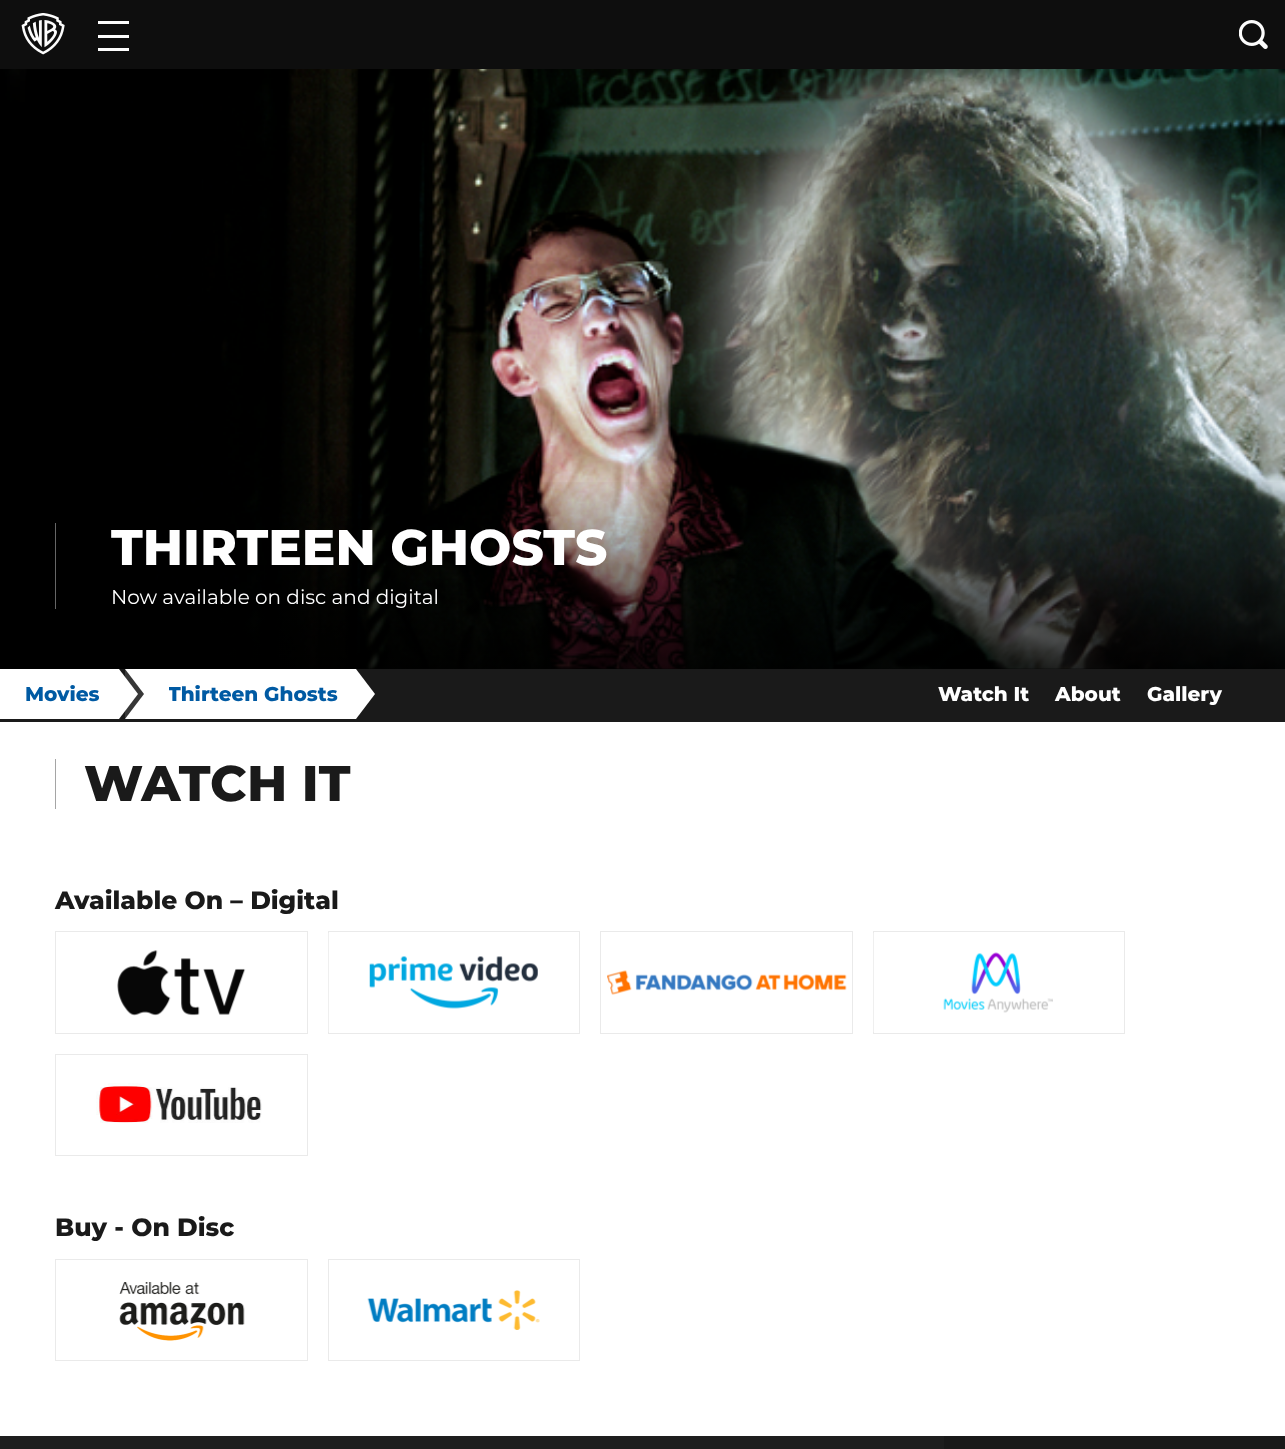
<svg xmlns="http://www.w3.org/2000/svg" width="1285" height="1449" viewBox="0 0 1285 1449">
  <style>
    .t1 { font: 800 50px Montserrat; fill: #fff; }
    .t2 { font: 20px Montserrat; fill: #fff; }
    .t3 { font: 800 20px Montserrat; fill: #005aa3; }
    .t4 { font: 800 20px Montserrat; fill: #fff; }
    .t5 { font: 800 50px Montserrat; fill: #1a1a1a; }
    .t6 { font: 800 25px Montserrat; fill: #1a1a1a; }
  </style>
  <defs>
    <linearGradient id="g1" gradientUnits="userSpaceOnUse" x1="643" y1="477" x2="643" y2="669"><stop offset="0" stop-color="#000" stop-opacity="0"/><stop offset="1" stop-color="#000" stop-opacity="0.8"/></linearGradient>
    <clipPath id="clip1"><rect x="169" y="683" width="169" height="23"/></clipPath>
  </defs>
  <rect width="100%" height="100%" fill="#0e0e0e"/>
  <image x="0" y="68" width="1285" height="601" href="images/3.png"/>
  <rect x="0" y="68" width="1285" height="1" fill="#0e0e0efc"/>
  <image x="21" y="13" width="44" height="42" href="images/1.png"/>
  <rect x="98" y="21" width="31" height="3" fill="#fdfdfd"/>
  <rect x="98" y="35" width="31" height="3" fill="#fdfdfd"/>
  <rect x="98" y="48" width="31" height="3" fill="#fdfdfd"/>
  <image x="1239" y="20" width="29" height="29" href="images/2.png"/>
  <rect x="0" y="482" width="1285" height="187" fill="url(#g1)"/>
  <rect x="55" y="523" width="1" height="86" fill="#666"/>
  <text x="111" y="565" class="t1">THIRTEEN GHOSTS</text>
  <text x="111" y="604" class="t2">Now available on disc and digital</text>
  <rect x="119" y="669" width="1166" height="50" fill="#1a1a1a"/>
  <rect x="0" y="719" width="1285" height="3" fill="#1a1a1a"/>
  <rect x="0" y="669" width="119" height="50" fill="#fff"/>
  <text x="25" y="701" class="t3">Movies</text>
  <rect x="125" y="669" width="231" height="50" fill="#fff"/>
  <path d="M125 719V669L144 694Z" fill="#373737"/>
  <path d="M119 719V669L138 694Z" fill="#fff"/>
  <g clip-path="url(#clip1)">
    <text x="168" y="701" class="t3">Thirteen Ghosts</text>
  </g>
  <path d="M356 719V669L375 694Z" fill="#fff"/>
  <text x="938" y="701" class="t4">Watch It</text>
  <text x="1055" y="701" class="t4">About</text>
  <text x="1147" y="701" class="t4">Gallery</text>
  <rect x="0" y="722" width="1285" height="714" fill="#fff"/>
  <rect x="55" y="759" width="1" height="50" fill="#a5a5a5"/>
  <text x="84" y="801" class="t5">WATCH IT</text>
  <text x="55" y="909" class="t6">Available On – Digital</text>
  <rect x="55.5" y="931.5" width="252" height="102" fill="none" stroke="#eaeaea"/>
  <image x="117" y="950" width="129" height="66" href="images/4.png"/>
  <rect x="328.5" y="931.5" width="251" height="102" fill="none" stroke="#eaeaea"/>
  <image x="328" y="933" width="210" height="99" href="images/5.png"/>
  <rect x="600.5" y="931.5" width="252" height="102" fill="none" stroke="#eaeaea"/>
  <image x="607" y="970" width="240" height="25" href="images/6.png"/>
  <rect x="873.5" y="931.5" width="251" height="102" fill="none" stroke="#eaeaea"/>
  <image x="873" y="933" width="180" height="99" href="images/7.png"/>
  <rect x="55.5" y="1054.5" width="252" height="101" fill="none" stroke="#eaeaea"/>
  <image x="96" y="1083" width="166" height="40" href="images/8.png"/>
  <text x="55" y="1236" class="t6">Buy - On Disc</text>
  <rect x="55.5" y="1259.5" width="252" height="101" fill="none" stroke="#eaeaea"/>
  <image x="119" y="1282" width="126" height="59" href="images/9.png"/>
  <rect x="328.5" y="1259.5" width="251" height="101" fill="none" stroke="#eaeaea"/>
  <image x="367" y="1290" width="173" height="40" href="images/10.png"/>
  <rect x="0" y="1436" width="944" height="13" fill="#1e1e1e"/>
  <rect x="944" y="1436" width="341" height="13" fill="#191919"/>
</svg>
